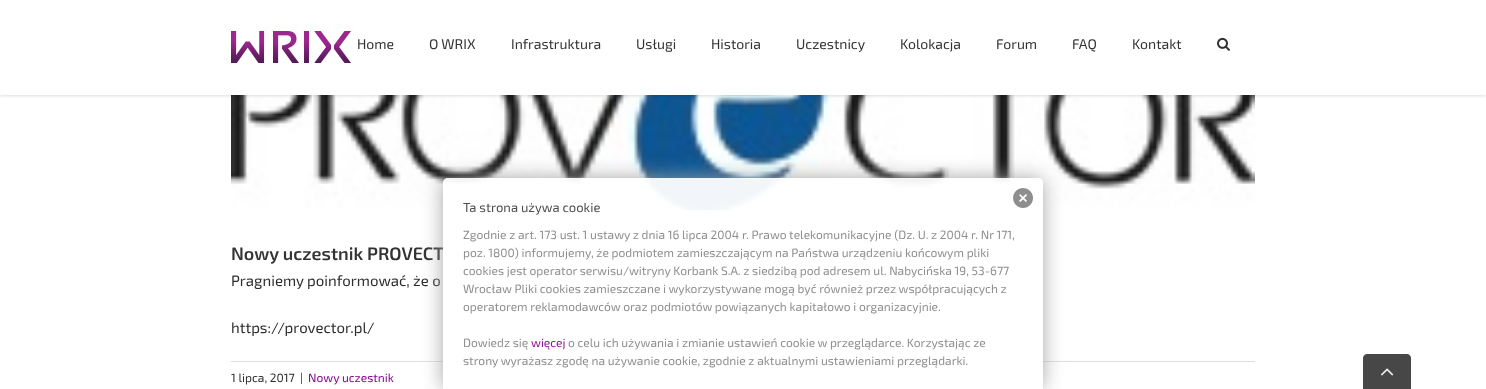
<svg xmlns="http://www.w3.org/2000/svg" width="1486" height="389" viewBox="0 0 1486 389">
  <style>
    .t1 { font: 14px 'Exo 2'; fill: #333; }
    .t2 { font: 600 18px 'Exo 2'; fill: #333; }
    .t3 { font: 15px 'Exo 2'; fill: #2d2d2d; }
    .t4 { font: 12px 'Exo 2'; fill: #2d2d2d; }
    .t5 { font: 12px 'Exo 2'; fill: #87058e; }
    .t6 { font: 13px 'Exo 2'; fill: #4d4d4d; }
    .t7 { font: 12px 'Exo 2'; fill: #8e8e8e; }
    .t8 { font: 12px 'Exo 2'; fill: #8d1294; }
  </style>
  <defs>
    <clipPath id="clip1"><path d="M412 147H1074V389H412ZM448 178H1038C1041 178 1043 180 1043 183V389H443V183C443 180 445 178 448 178Z" clip-rule="evenodd"/></clipPath>
  </defs>
  <rect width="100%" height="100%" fill="#fff"/>
  <image x="231" y="95" width="1024" height="115" href="images/3.png"/>
  <rect x="0" y="1" width="1486" height="95" fill="#0000001f" filter="blur(1.5px)"/>
  <rect x="0" y="0" width="1486" height="95" fill="#fff"/>
  <image x="231" y="31" width="120" height="32" href="images/1.png"/>
  <text x="357" y="49" class="t1">Home</text>
  <text x="429" y="49" class="t1">O WRIX</text>
  <text x="511" y="49" class="t1">Infrastruktura</text>
  <text x="636" y="49" class="t1">Usługi</text>
  <text x="711" y="49" class="t1">Historia</text>
  <text x="796" y="49" class="t1">Uczestnicy</text>
  <text x="900" y="49" class="t1">Kolokacja</text>
  <text x="996" y="49" class="t1">Forum</text>
  <text x="1072" y="49" class="t1">FAQ</text>
  <text x="1132" y="49" class="t1">Kontakt</text>
  <image x="1217" y="37" width="13" height="14" href="images/2.png"/>
  <text x="231" y="260" class="t2">Nowy uczestnik PROVECT</text>
  <text x="231" y="286" class="t3">Pragniemy poinformować, że o</text>
  <text x="231" y="333" class="t3">https://provector.pl/</text>
  <rect x="231" y="361" width="1024" height="1" fill="#e0dede"/>
  <text x="231" y="382" class="t4">1 lipca, 2017</text>
  <text x="300" y="382" class="t4">|</text>
  <text x="308" y="382" class="t5">Nowy uczestnik</text>
  <g clip-path="url(#clip1)">
    <rect x="443" y="178" width="600" height="211" rx="5" fill="#a1a1a1f2" filter="blur(10px)"/>
  </g>
  <path d="M448 178H1038C1041 178 1043 180 1043 183V389H443V183C443 180 445 178 448 178Z" fill="#fffffff2"/>
  <text x="463" y="212" class="t6">Ta strona używa cookie</text>
  <image x="1013" y="188" width="20" height="20" href="images/4.png"/>
  <text x="463" y="239" class="t7">Zgodnie z art. 173 ust. 1 ustawy z dnia 16 lipca 2004 r. Prawo telekomunikacyjne (Dz. U. z 2004 r. Nr 171,</text>
  <text x="463" y="257" class="t7">poz. 1800) informujemy, że podmiotem zamieszczającym na Państwa urządzeniu końcowym pliki</text>
  <text x="463" y="275" class="t7">cookies jest operator serwisu/witryny Korbank S.A. z siedzibą pod adresem ul. Nabycińska 19, 53-677</text>
  <text x="463" y="293" class="t7">Wrocław Pliki cookies zamieszczane i wykorzystywane mogą być również przez współpracujących z</text>
  <text x="463" y="311" class="t7">operatorem reklamodawców oraz podmiotów powiązanych kapitałowo i organizacyjnie.</text>
  <text x="463" y="347" class="t7">Dowiedz się</text>
  <text x="531" y="347" class="t8">więcej</text>
  <text x="568" y="347" class="t7">o celu ich używania i zmianie ustawień cookie w przeglądarce. Korzystając ze</text>
  <text x="463" y="365" class="t7">strony wyrażasz zgodę na używanie cookie, zgodnie z aktualnymi ustawieniami przeglądarki.</text>
  <path d="M1367 354H1407C1409 354 1411 356 1411 358V389H1363V358C1363 356 1365 354 1367 354Z" fill="#474747"/>
  <image x="1381" y="368" width="13" height="8" href="images/5.png"/>
</svg>
